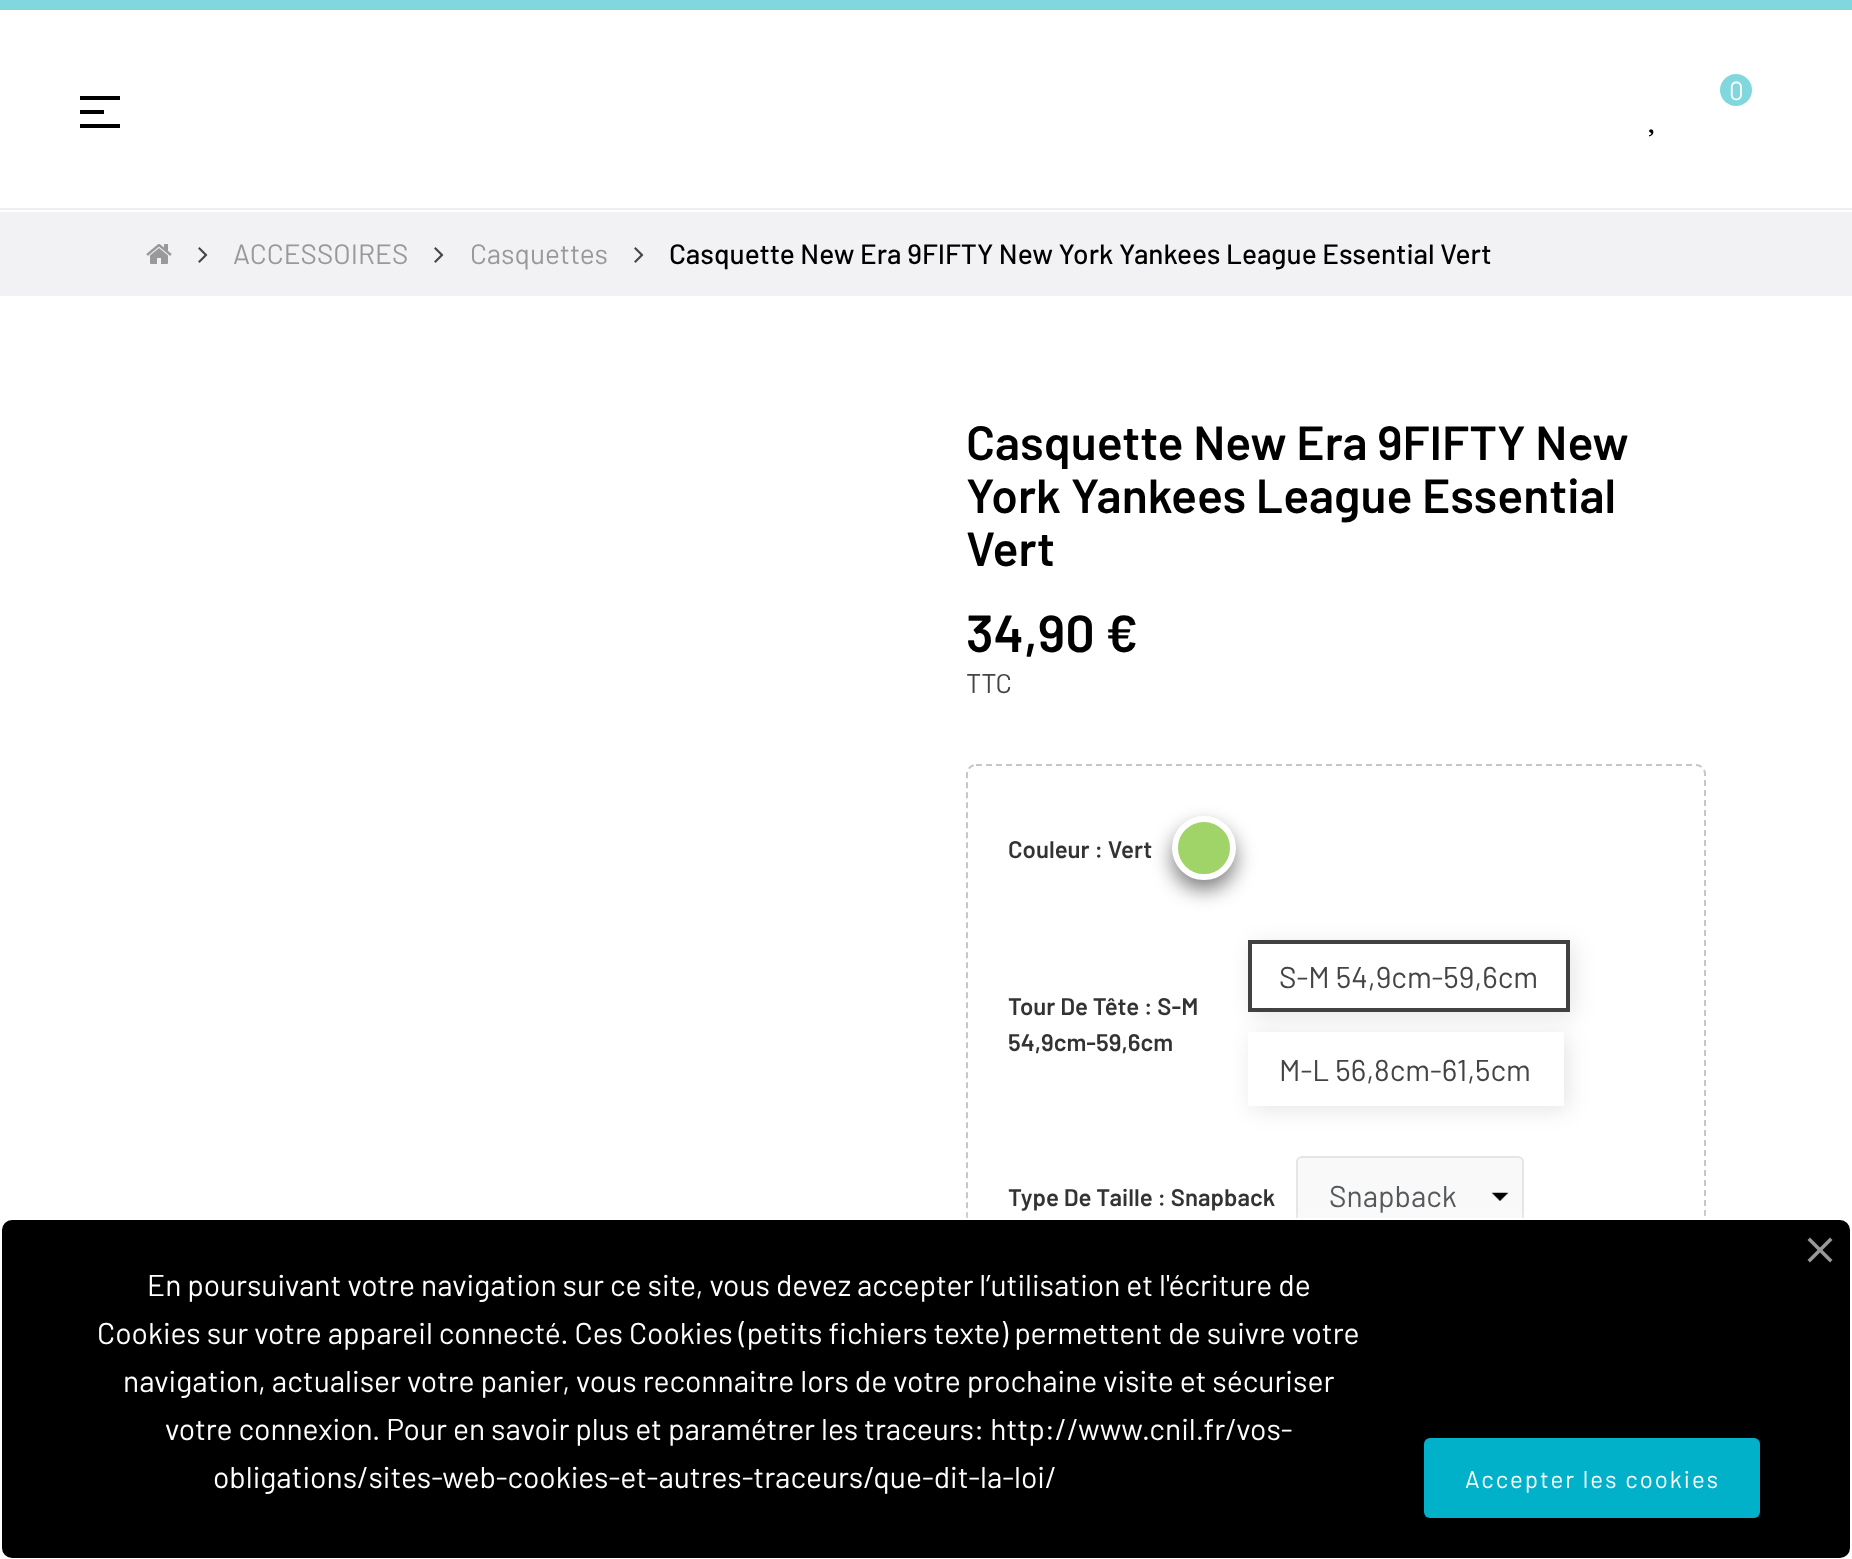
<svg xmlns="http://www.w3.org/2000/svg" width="1852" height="1559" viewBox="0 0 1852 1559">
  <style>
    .t1 { font: 26px Barlow; fill: #fff; }
    .t2 { font: 28px Barlow; fill: #999; }
    .t3 { font: 500 28px Barlow; fill: #000; }
    .t4 { font: 600 48px Barlow; fill: #000; }
    .t5 { font: 600 52px Barlow; fill: #000; }
    .t6 { font: 27px Barlow; fill: #444; }
    .t7 { font: 600 24px Barlow; fill: #333; }
    .t8 { font: 30px Barlow; fill: #444; }
    .t9 { font: 30px Barlow; fill: #55595c; }
    .t10 { font: 30px Barlow; fill: #fff; }
    .t11 { font: 24px Barlow; letter-spacing: 2px; fill: #fff; }
  </style>
  <defs>
    <clipPath id="clip1"><path d="M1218 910H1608V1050H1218ZM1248 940H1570V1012H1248Z" clip-rule="evenodd"/></clipPath>
  </defs>
  <rect width="100%" height="100%" fill="#fff"/>
  <rect x="0" y="0" width="1852" height="10" fill="#80d7dd"/>
  <circle cx="1736" cy="90" r="16" fill="#80d7dd"/>
  <text x="1729" y="100" class="t1">0</text>
  <image x="1649" y="129" width="5" height="8" href="images/1.png"/>
  <rect x="0" y="208" width="1852" height="2" fill="#eee"/>
  <rect x="80" y="96" width="40" height="4" fill="#000"/>
  <rect x="80" y="124" width="40" height="4" fill="#000"/>
  <rect x="80" y="110" width="24" height="4" fill="#000"/>
  <rect x="0" y="212" width="1852" height="84" fill="#f2f2f4"/>
  <image x="146" y="244" width="26" height="20" href="images/2.png"/>
  <image x="198" y="247" width="10" height="16" href="images/3.png"/>
  <text x="233" y="264" class="t2">ACCESSOIRES</text>
  <image x="434" y="247" width="10" height="16" href="images/3.png"/>
  <text x="470" y="264" class="t2">Casquettes</text>
  <image x="634" y="247" width="10" height="16" href="images/3.png"/>
  <text x="669" y="264" class="t3">Casquette New Era 9FIFTY New York Yankees League Essential Vert</text>
  <text x="966" y="460" class="t4">Casquette New Era 9FIFTY New</text>
  <text x="966" y="513" class="t4">York Yankees League Essential</text>
  <text x="966" y="566" class="t4">Vert</text>
  <text x="966" y="652" class="t5">34,90 €</text>
  <text x="966" y="693" class="t6">TTC</text>
  <path d="M976 765H1696C1701 765 1705 769 1705 774V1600C1705 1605 1701 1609 1696 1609H976C971 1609 967 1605 967 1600V774C967 769 971 765 976 765Z" fill="none" stroke="#c7c7c7" stroke-width="2" stroke-dasharray="6 4"/>
  <text x="1008" y="858" class="t7">Couleur : Vert</text>
  <rect x="1172" y="826" width="64" height="64" rx="32" fill="#00000080" filter="blur(10px)"/>
  <circle cx="1204" cy="848" r="29" fill="#a0d468" stroke="#fff" stroke-width="6"/>
  <text x="1008" y="1015" class="t7">Tour De Tête : S-M</text>
  <text x="1008" y="1051" class="t7">54,9cm-59,6cm</text>
  <g clip-path="url(#clip1)">
    <rect x="1252" y="944" width="322" height="72" fill="#0000001a" filter="blur(11px)"/>
  </g>
  <rect x="1250" y="942" width="318" height="68" fill="none" stroke="#414141" stroke-width="4"/>
  <text x="1279" y="988" class="t8">S-M 54,9cm-59,6cm</text>
  <rect x="1252" y="1036" width="316" height="74" fill="#0000001a" filter="blur(11px)"/>
  <rect x="1248" y="1032" width="316" height="74" fill="#fff"/>
  <text x="1279" y="1081" class="t8">M-L 56,8cm-61,5cm</text>
  <text x="1008" y="1206" class="t7">Type De Taille : Snapback</text>
  <rect x="1296" y="1156" width="228" height="80" rx="6" fill="#f9f9f9"/>
  <image x="1491" y="1192" width="18" height="9" href="images/4.png"/>
  <rect x="1297" y="1157" width="226" height="78" rx="5" fill="none" stroke="#e5e5e5" stroke-width="2"/>
  <text x="1329" y="1207" class="t9">Snapback</text>
  <rect x="4" y="1222" width="1844" height="334" rx="8" fill="#fff" filter="blur(7px)"/>
  <rect x="1" y="1219" width="1850" height="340" rx="11" fill="#000" stroke="#fff" stroke-width="2"/>
  <path d="M1807.5 1260L1830 1237.5L1832.5 1240L1810 1262.5Z" fill="#999"/>
  <path d="M1810 1237.5L1832.5 1260L1830 1262.5L1807.5 1240Z" fill="#999"/>
  <text x="147" y="1296" class="t10">En poursuivant votre navigation sur ce site, vous devez accepter l’utilisation et l'écriture de</text>
  <text x="97" y="1344" class="t10">Cookies sur votre appareil connecté. Ces Cookies (petits fichiers texte) permettent de suivre votre</text>
  <text x="123" y="1392" class="t10">navigation, actualiser votre panier, vous reconnaitre lors de votre prochaine visite et sécuriser</text>
  <text x="165" y="1440" class="t10">votre connexion. Pour en savoir plus et paramétrer les traceurs: http://www.cnil.fr/vos-</text>
  <text x="213" y="1488" class="t10">obligations/sites-web-cookies-et-autres-traceurs/que-dit-la-loi/</text>
  <rect x="1424" y="1438" width="336" height="80" rx="6" fill="#00b1c9"/>
  <text x="1465" y="1488" class="t11">Accepter les cookies</text>
</svg>
